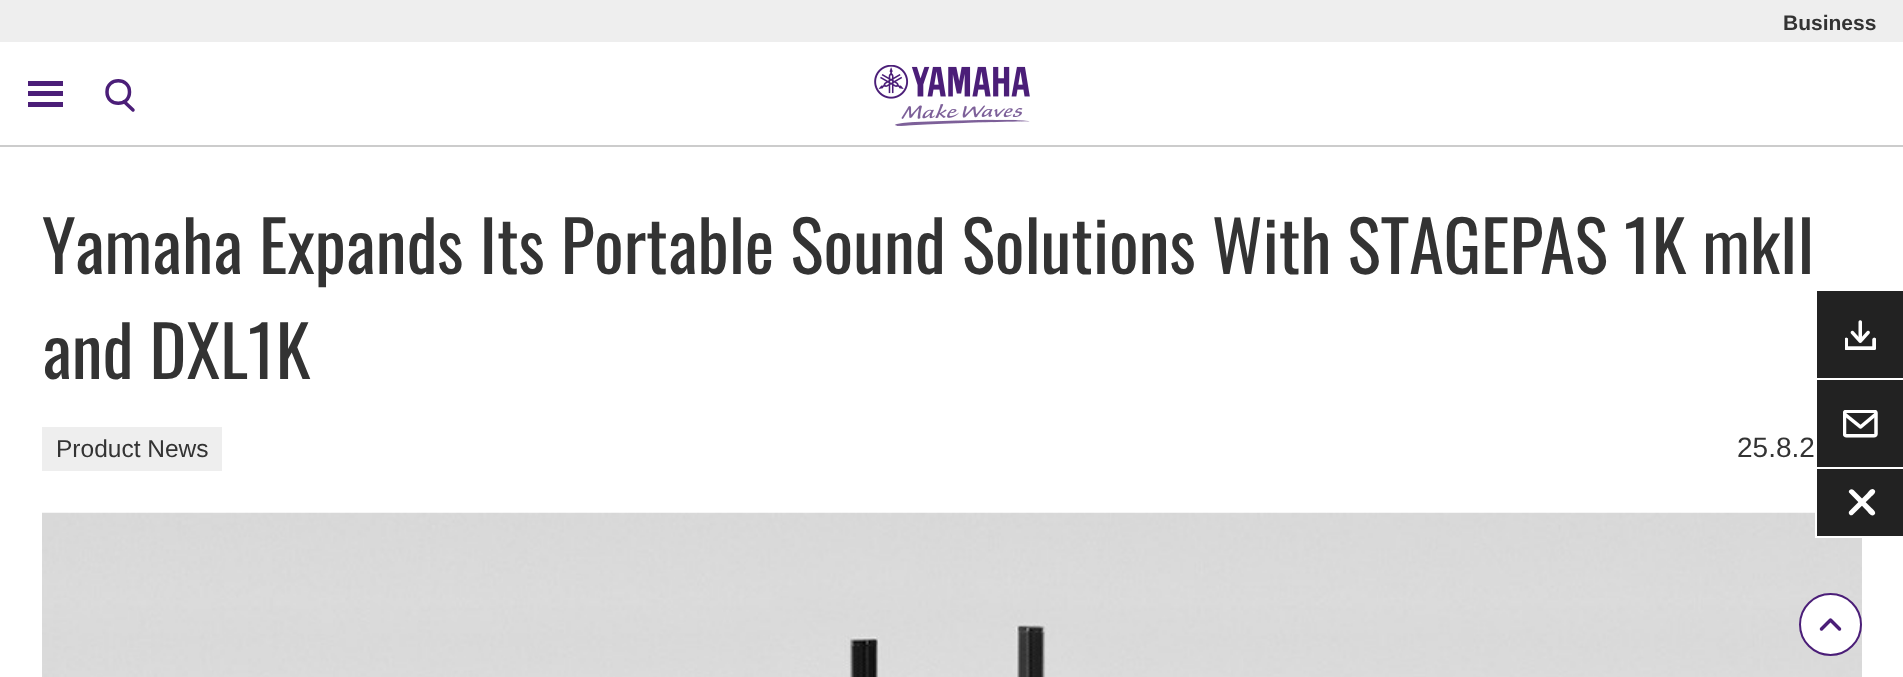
<svg xmlns="http://www.w3.org/2000/svg" width="1903" height="677" viewBox="0 0 1903 677">
  <style>
    .t1 { font: bold 21px Liberation Sans; fill: #333; }
    .t2 { font: 70px Oswald; fill: #333; }
    .t3 { font: 24.5px Liberation Sans; fill: #333; }
    .t4 { font: 28px Liberation Sans; fill: #333; }
  </style>
  <rect width="100%" height="100%" fill="#fff"/>
  <rect x="0" y="145" width="1903" height="2" fill="#ccc"/>
  <rect x="0" y="0" width="1903" height="42" fill="#eee"/>
  <text x="1783" y="30" class="t1">Business</text>
  <rect x="28" y="91" width="35" height="5" fill="#4b1e78"/>
  <rect x="28" y="81" width="35" height="5" fill="#4b1e78"/>
  <rect x="28" y="102" width="35" height="5" fill="#4b1e78"/>
  <path d="M124 101.5L133 110ZM107 92C107 77 129.5 77 129.5 92C129.5 107 107 107 107 92Z" fill="none" stroke="#4b1e78" stroke-width="3.5" stroke-linecap="round" stroke-linejoin="round"/>
  <image x="874" y="65" width="156" height="61" href="images/1.png"/>
  <text x="42" y="274" class="t2">Yamaha Expands Its Portable Sound Solutions With STAGEPAS 1K mkII</text>
  <text x="42" y="379" class="t2">and DXL1K</text>
  <rect x="42" y="427" width="180" height="44" fill="#eee"/>
  <text x="56" y="457" class="t3">Product News</text>
  <text x="1737" y="457" class="t4">25.8.2</text>
  <image x="42" y="512" width="1820" height="165" href="images/2.png"/>
  <rect x="1817" y="291" width="86" height="245" fill="#222"/>
  <image x="1845" y="320" width="31" height="30" href="images/3.png"/>
  <rect x="1815" y="378" width="88" height="2" fill="#fff"/>
  <image x="1843" y="410" width="35" height="28" href="images/4.png"/>
  <rect x="1815" y="467" width="88" height="2" fill="#fff"/>
  <rect x="1815" y="536" width="47" height="2" fill="#fff"/>
  <rect x="1815" y="512" width="2" height="25" fill="#fff"/>
  <path d="M1853.5 490L1871 507.5C1872 508.5 1877 512 1874.5 514.5C1871.5 517.5 1868.5 512.5 1867 511L1849 492.5C1848 490 1851.5 488 1853.5 490Z" fill="#fff"/>
  <path d="M1849.5 511L1867 493.5C1868.5 492 1871.5 487 1874.5 490C1877 492.5 1872 496 1871 497L1852.5 515C1850 516.5 1847.5 513 1849.5 511Z" fill="#fff"/>
  <circle cx="1830.5" cy="624.5" r="30.5" fill="#fff" stroke="#4b1e78" stroke-width="2"/>
  <path d="M1821.5 629L1830.5 620L1839.5 629" fill="none" stroke="#4b1e78" stroke-width="3.5" stroke-linecap="round" stroke-linejoin="round"/>
</svg>
